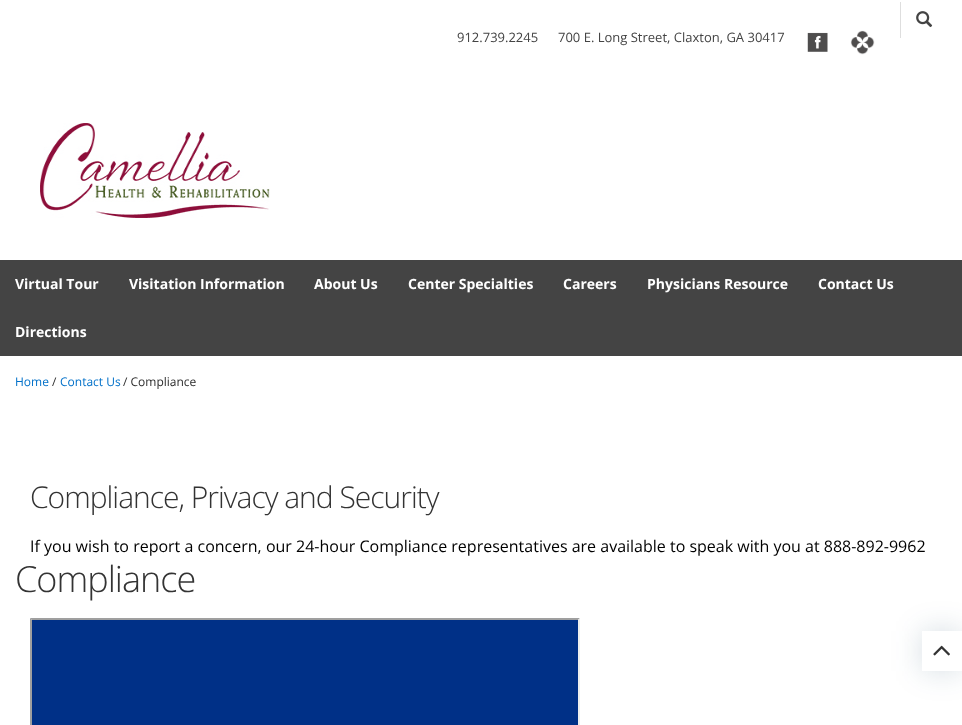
<svg xmlns="http://www.w3.org/2000/svg" width="962" height="725" viewBox="0 0 962 725">
  <style>
    .t1 { font: 13px Open Sans; fill: #444; }
    .t2 { font: bold 14px Open Sans; fill: #fff; }
    .t3 { font: 12px Open Sans; fill: #0070c9; }
    .t4 { font: 12px Open Sans; fill: #2b2b2b; }
    .t5 { font: 300 30px Open Sans; letter-spacing: -1px; fill: #333; }
    .t6 { font: 16px Open Sans; fill: #000; }
    .t7 { font: 300 36px Open Sans; letter-spacing: -1px; fill: #333; }
  </style>
  <defs>
    <clipPath id="clip1"><path d="M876 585H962V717H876ZM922 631H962V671H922Z" clip-rule="evenodd"/></clipPath>
  </defs>
  <rect width="100%" height="100%" fill="#fff"/>
  <text x="457" y="42" class="t1">912.739.2245</text>
  <text x="558" y="42" class="t1">700 E. Long Street, Claxton, GA 30417</text>
  <image x="807" y="32" width="21" height="20" href="images/1.png"/>
  <image x="850" y="30" width="25" height="25" href="images/2.png"/>
  <rect x="900" y="2" width="1" height="36" fill="#dedede"/>
  <image x="916" y="11" width="17" height="17" href="images/3.png"/>
  <image x="40" y="123" width="230" height="95" href="images/4.png"/>
  <rect x="0" y="260" width="962" height="96" fill="#444"/>
  <text x="15" y="289" class="t2">Virtual Tour</text>
  <text x="129" y="289" class="t2">Visitation Information</text>
  <text x="314" y="289" class="t2">About Us</text>
  <text x="408" y="289" class="t2">Center Specialties</text>
  <text x="563" y="289" class="t2">Careers</text>
  <text x="647" y="289" class="t2">Physicians Resource</text>
  <text x="818" y="289" class="t2">Contact Us</text>
  <text x="15" y="337" class="t2">Directions</text>
  <text x="15" y="386" class="t3">Home</text>
  <text x="52" y="386" class="t4">/</text>
  <text x="60" y="386" class="t3">Contact Us</text>
  <text x="123" y="386" class="t4">/ Compliance</text>
  <text x="30" y="508" class="t5">Compliance, Privacy and Security</text>
  <text x="30" y="552" class="t6">If you wish to report a concern, our 24-hour Compliance representatives are available to speak with you at 888-892-9962</text>
  <text x="15" y="592" class="t7">Compliance</text>
  <path d="M30 618H580L578 620H32Z" fill="#9f9f9f"/>
  <path d="M30 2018V618L32 620V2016Z" fill="#9f9f9f"/>
  <rect x="32" y="620" width="546" height="105" fill="#003087"/>
  <path d="M580 618V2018L578 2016V620Z" fill="#eee"/>
  <g clip-path="url(#clip1)">
    <rect x="922" y="631" width="40" height="40" fill="#0733542b" filter="blur(15px)"/>
  </g>
  <image x="933" y="645" width="17" height="11" href="images/5.png"/>
</svg>
